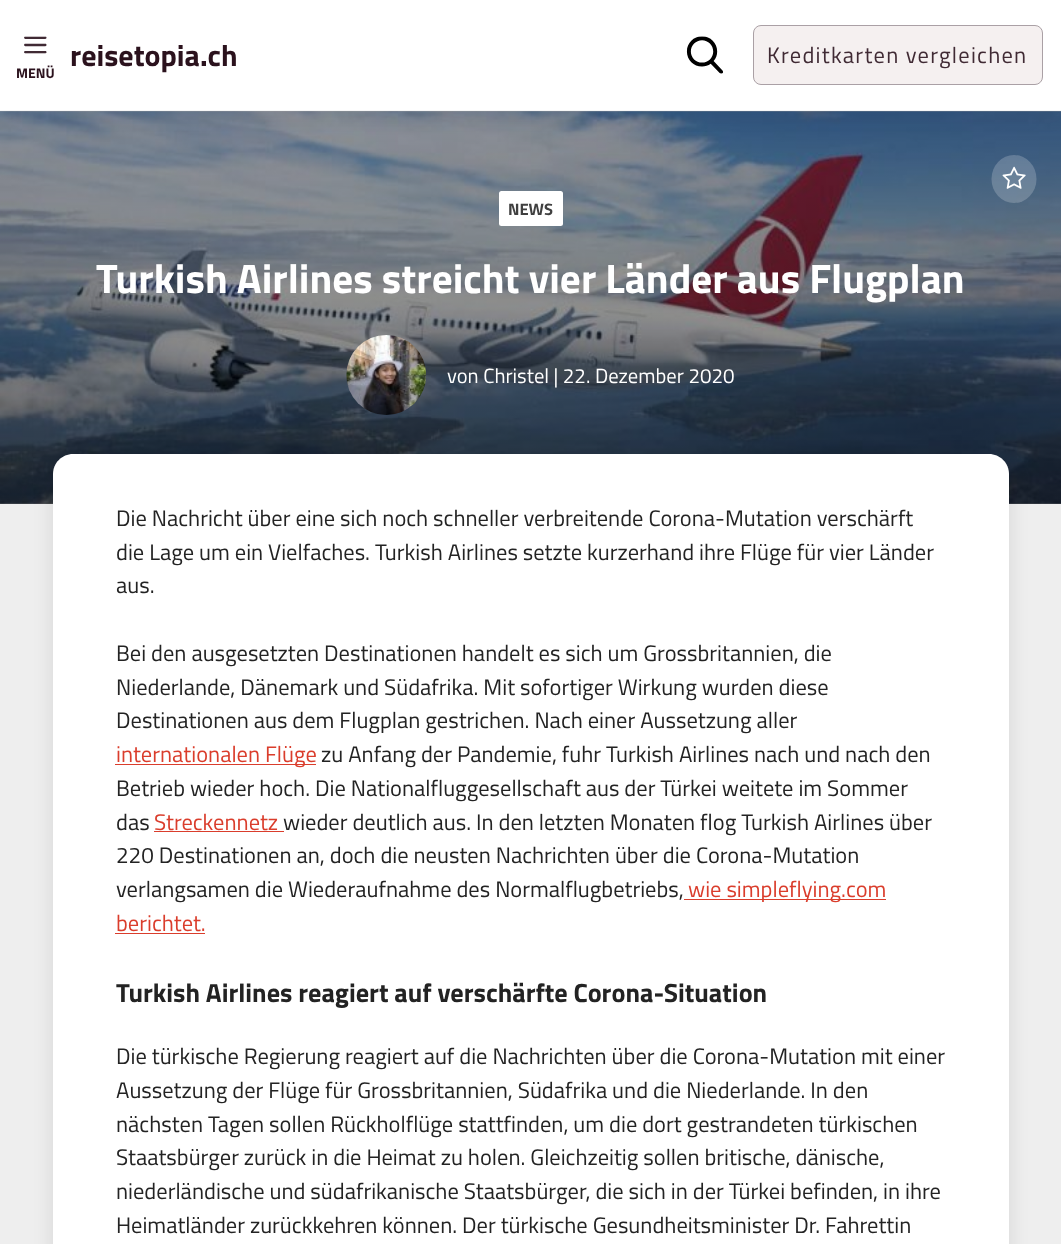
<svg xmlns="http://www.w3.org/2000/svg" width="1061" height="1244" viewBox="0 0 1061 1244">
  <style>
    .t1 { font: bold 14px Titillium Web; fill: #2b121d; }
    .t2 { font: bold 30px Titillium Web; fill: #2b121d; }
    .t3 { font: 22.5px Titillium Web; letter-spacing: 1.25px; fill: #402a34; }
    .t4 { font: bold 16.5px Titillium Web; fill: #404040; }
    .t5 { font: bold 41.25px Titillium Web; fill: #fff; }
    .t6 { font: 20.6px Titillium Web; fill: #fff; }
    .t7 { font: 22.5px Titillium Web; fill: #232323; }
    .t8 { font: 22.5px Titillium Web; fill: #da3d2c; }
    .t9 { font: bold 26.3px Titillium Web; fill: #232323; }
  </style>
  <defs>
    <linearGradient id="g1" gradientUnits="userSpaceOnUse" x1="531" y1="111" x2="531" y2="504"><stop offset="0" stop-color="#000" stop-opacity="0.3"/><stop offset="1" stop-color="#000" stop-opacity="0.5"/></linearGradient>
  </defs>
  <rect width="100%" height="100%" fill="#eee"/>
  <image x="0" y="111" width="1061" height="393" href="images/3.png"/>
  <rect x="0" y="111" width="1061" height="393" fill="url(#g1)"/>
  <rect x="0" y="5" width="1061" height="111" fill="#2b121d0d" filter="blur(9.5px)"/>
  <rect x="0" y="0" width="1061" height="110" fill="#fff"/>
  <rect x="0" y="110" width="1061" height="1" fill="#f6f6f6"/>
  <image x="24" y="36" width="23" height="18" href="images/1.png"/>
  <text x="16" y="78" class="t1">MENÜ</text>
  <text x="70" y="66" class="t2">reisetopia.ch</text>
  <image x="686" y="36" width="37" height="38" href="images/2.png"/>
  <rect x="753.5" y="25.5" width="289" height="59" rx="7.5" fill="#f5f0f0" stroke="#aaa0a5"/>
  <text x="767" y="63" class="t3">Kreditkarten vergleichen</text>
  <ellipse cx="1014" cy="179" rx="22.5" ry="24" fill="#ffffff33"/>
  <image x="1002" y="166" width="24" height="23" href="images/4.png"/>
  <rect x="499" y="191" width="64" height="35" rx="2.5" fill="#fff"/>
  <text x="508" y="215" class="t4">NEWS</text>
  <text x="96" y="293" class="t5">Turkish Airlines streicht vier Länder aus Flugplan</text>
  <image x="346" y="335" width="80" height="80" href="images/5.png"/>
  <text x="447" y="383" class="t6">von Christel | 22. Dezember 2020</text>
  <rect x="53" y="459" width="956" height="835" rx="20" fill="#0000001a" filter="blur(10px)"/>
  <path d="M73 454H989C1000 454 1009 463 1009 474V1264H53V474C53 463 62 454 73 454Z" fill="#fff"/>
  <text x="116" y="526" class="t7">Die Nachricht über eine sich noch schneller verbreitende Corona-Mutation verschärft</text>
  <text x="116" y="560" class="t7">die Lage um ein Vielfaches. Turkish Airlines setzte kurzerhand ihre Flüge für vier Länder</text>
  <text x="116" y="593" class="t7">aus.</text>
  <text x="116" y="661" class="t7">Bei den ausgesetzten Destinationen handelt es sich um Grossbritannien, die</text>
  <text x="116" y="695" class="t7">Niederlande, Dänemark und Südafrika. Mit sofortiger Wirkung wurden diese</text>
  <text x="116" y="728" class="t7">Destinationen aus dem Flugplan gestrichen. Nach einer Aussetzung aller</text>
  <rect x="115" y="764" width="201" height="1" fill="#da3d2c"/>
  <text x="116" y="762" class="t8">internationalen Flüge</text>
  <text x="321" y="762" class="t7">zu Anfang der Pandemie, fuhr Turkish Airlines nach und nach den</text>
  <text x="116" y="796" class="t7">Betrieb wieder hoch. Die Nationalfluggesellschaft aus der Türkei weitete im Sommer</text>
  <text x="116" y="830" class="t7">das</text>
  <text x="154" y="830" class="t8">Streckennetz</text>
  <rect x="154" y="831" width="130" height="1" fill="#da3d2c"/>
  <text x="283" y="830" class="t7">wieder deutlich aus. In den letzten Monaten flog Turkish Airlines über</text>
  <text x="116" y="863" class="t7">220 Destinationen an, doch die neusten Nachrichten über die Corona-Mutation</text>
  <text x="116" y="897" class="t7">verlangsamen die Wiederaufnahme des Normalflugbetriebs,</text>
  <rect x="684" y="899" width="202" height="1" fill="#da3d2c"/>
  <text x="688" y="897" class="t8">wie simpleflying.com</text>
  <text x="116" y="931" class="t8">berichtet.</text>
  <rect x="115" y="933" width="90" height="1" fill="#da3d2c"/>
  <text x="116" y="1002" class="t9">Turkish Airlines reagiert auf verschärfte Corona-Situation</text>
  <text x="116" y="1064" class="t7">Die türkische Regierung reagiert auf die Nachrichten über die Corona-Mutation mit einer</text>
  <text x="116" y="1098" class="t7">Aussetzung der Flüge für Grossbritannien, Südafrika und die Niederlande. In den</text>
  <text x="116" y="1132" class="t7">nächsten Tagen sollen Rückholflüge stattfinden, um die dort gestrandeten türkischen</text>
  <text x="116" y="1165" class="t7">Staatsbürger zurück in die Heimat zu holen. Gleichzeitig sollen britische, dänische,</text>
  <text x="116" y="1199" class="t7">niederländische und südafrikanische Staatsbürger, die sich in der Türkei befinden, in ihre</text>
  <text x="116" y="1233" class="t7">Heimatländer zurückkehren können. Der türkische Gesundheitsminister Dr. Fahrettin</text>
</svg>
